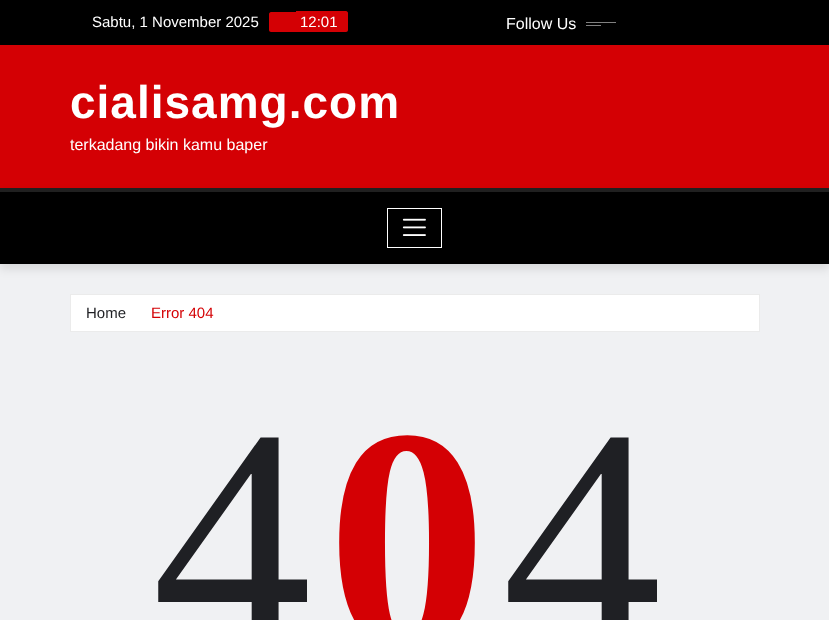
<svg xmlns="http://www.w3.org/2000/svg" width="829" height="620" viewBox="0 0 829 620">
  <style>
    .t1 { font: 15px Liberation Sans; fill: #fff; }
    .t2 { font: 16px Liberation Sans; fill: #fff; }
    .t3 { font: bold 46px Liberation Sans; letter-spacing: 1px; fill: #fff; }
    .t4 { font: 15px Liberation Sans; fill: #1f2024; }
    .t5 { font: 15px Liberation Sans; fill: #d40004; }
    .t6 { font: 320px Liberation Serif; letter-spacing: 15px; fill: #1f2024; }
    .t7 { font: bold 320px Liberation Serif; letter-spacing: 15px; fill: #d40004; }
  </style>
  <rect width="100%" height="100%" fill="#f0f1f3"/>
  <rect x="0" y="0" width="829" height="45" fill="#000"/>
  <text x="92" y="27" class="t1">Sabtu, 1 November 2025</text>
  <path d="M296 11H346C347 11 348 12 348 13V30C348 31 347 32 346 32H296Z" fill="#d40004"/>
  <text x="300" y="27" class="t1">12:01</text>
  <path d="M271 12H296V32H271C270 32 269 31 269 30V14C269 13 270 12 271 12Z" fill="#d40004"/>
  <text x="506" y="29" class="t2">Follow Us</text>
  <rect x="586" y="22" width="30" height="1" fill="#808080"/>
  <rect x="586" y="25" width="15" height="1" fill="#808080"/>
  <rect x="0" y="45" width="829" height="143" fill="#d40004"/>
  <text x="70" y="118" class="t3">cialisamg.com</text>
  <text x="70" y="150" class="t2">terkadang bikin kamu baper</text>
  <rect x="0" y="193" width="829" height="76" fill="#0000001a" filter="blur(5px)"/>
  <rect x="0" y="192" width="829" height="72" fill="#000"/>
  <rect x="0" y="188" width="829" height="4" fill="#202020"/>
  <rect x="387.5" y="208.5" width="54" height="39" fill="none" stroke="#fff"/>
  <image x="402" y="218" width="24" height="18" href="images/1.png"/>
  <rect x="70.5" y="294.5" width="689" height="37" fill="#fff" stroke="#ebebeb"/>
  <text x="86" y="318" class="t4">Home</text>
  <text x="151" y="318" class="t5">Error 404</text>
  <text x="152" y="648" class="t6">4</text>
  <text x="327" y="648" class="t7">0</text>
  <text x="502" y="648" class="t6">4</text>
</svg>
